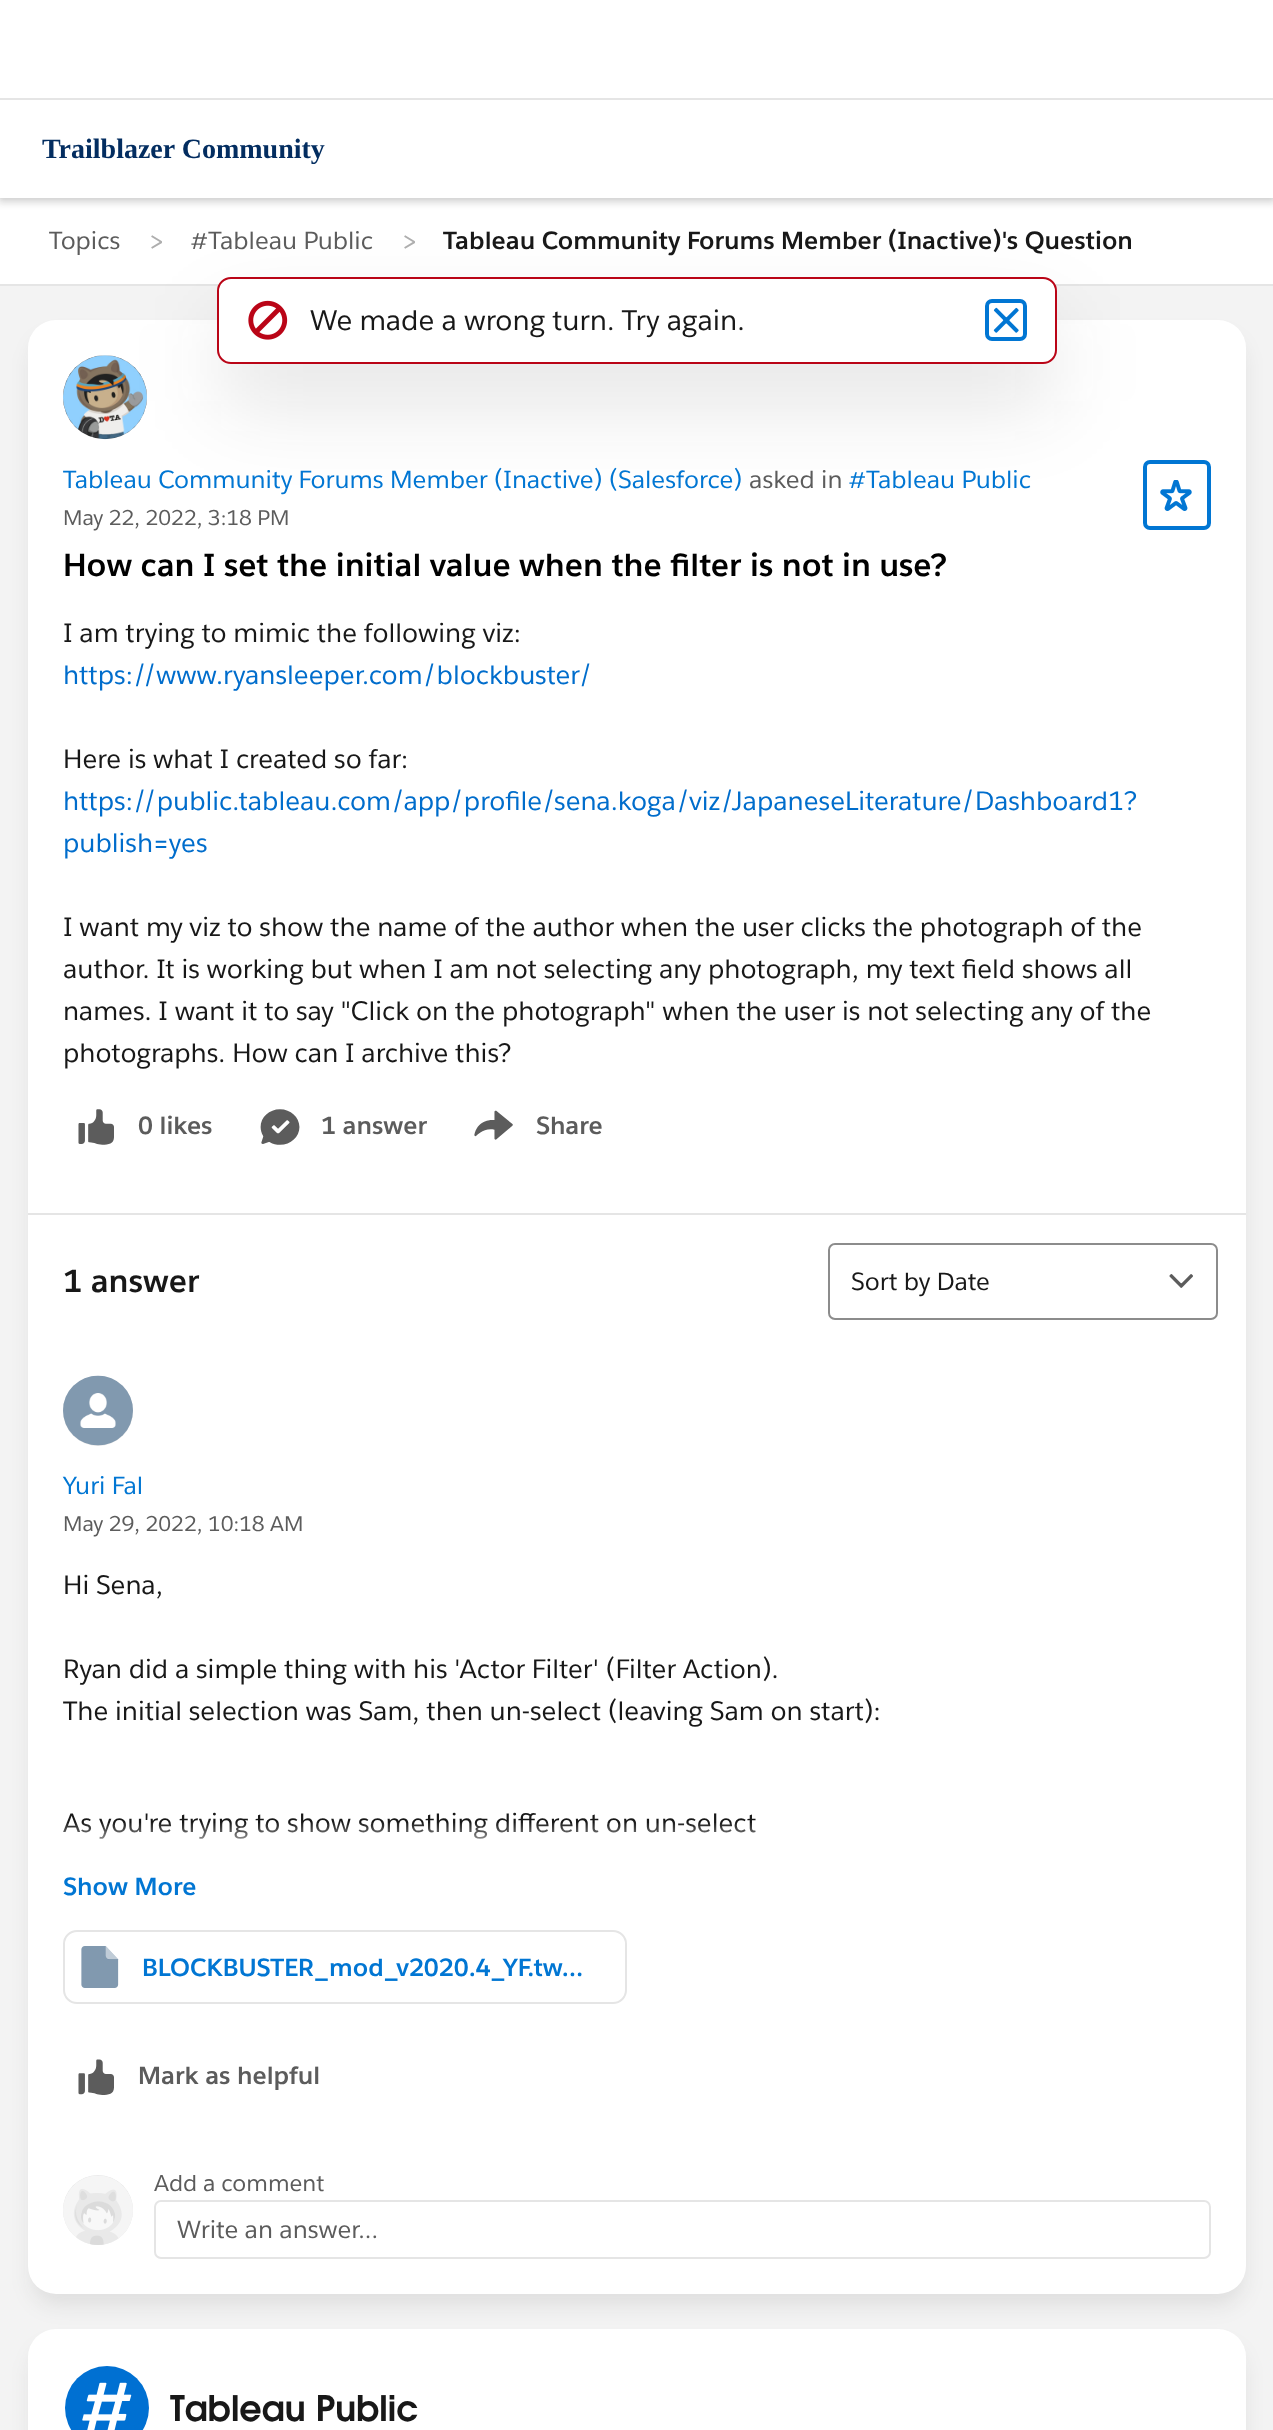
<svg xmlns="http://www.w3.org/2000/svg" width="1273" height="2430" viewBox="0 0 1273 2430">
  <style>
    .t1 { font: bold 28px Liberation Serif; fill: #032d60; }
    .t2 { font: 24.5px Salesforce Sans; fill: #5c5c5c; }
    .t3 { font: 28px Salesforce Sans; fill: #aeaeae; }
    .t4 { font: bold 24.5px Salesforce Sans; fill: #181818; }
    .t5 { font: 24.5px Salesforce Sans; fill: #0176d3; }
    .t6 { font: 21px Salesforce Sans; fill: #5c5c5c; }
    .t7 { font: bold 31.5px Salesforce Sans; fill: #000; }
    .t8 { font: 26.25px Salesforce Sans; fill: #181818; }
    .t9 { font: 26.25px Salesforce Sans; fill: #006dcc; }
    .t10 { font: bold 24.5px Salesforce Sans; fill: #5c5c5c; }
    .t11 { font: bold 31.5px Salesforce Sans; fill: #181818; }
    .t12 { font: 24.5px Salesforce Sans; fill: #181818; }
    .t13 { font: bold 24.5px Salesforce Sans; fill: #0176d3; }
    .t14 { font: 22.75px Salesforce Sans; fill: #5c5c5c; }
    .t15 { font: 600 35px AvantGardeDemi; fill: #181818; }
    .t16 { font: 28px Salesforce Sans; fill: #181818; }
  </style>
  <defs>
    <linearGradient id="g1" gradientUnits="userSpaceOnUse" x1="637" y1="1769" x2="637" y2="1857"><stop offset="0.6" stop-color="#fff" stop-opacity="0"/><stop offset="1" stop-color="#fff"/></linearGradient>
  </defs>
  <rect width="100%" height="100%" fill="#f3f3f3"/>
  <rect x="0" y="198" width="1273" height="86" fill="#fff"/>
  <rect x="-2" y="100" width="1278" height="103" fill="#18181829" filter="blur(3.5px)"/>
  <rect x="0" y="98" width="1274" height="100" fill="#18181814" filter="blur(2px)"/>
  <rect x="0" y="0" width="1273" height="98" fill="#fff"/>
  <rect x="0" y="284" width="1273" height="2" fill="#e5e5e5"/>
  <rect x="32" y="338" width="1211" height="1967" rx="25" fill="#18181817" filter="blur(10.5px)"/>
  <rect x="28" y="320" width="1218" height="1974" rx="28" fill="#fff"/>
  <circle cx="105" cy="397" r="42" fill="#e5e5e5"/>
  <image x="63" y="355" width="84" height="85" href="images/1.png"/>
  <rect x="1145" y="462" width="64" height="66" rx="5" fill="none" stroke="#0176d3" stroke-width="4"/>
  <image x="1160" y="480" width="32" height="31" href="images/2.png"/>
  <rect x="221" y="322" width="833" height="81" rx="11" fill="#1818181f" filter="blur(42px)"/>
  <rect x="0" y="100" width="1273" height="98" fill="#fff"/>
  <rect x="0" y="98" width="1273" height="2" fill="#e5e5e5"/>
  <text x="42" y="158" class="t1">Trailblazer Community</text>
  <text x="49" y="249" class="t2">Topics</text>
  <text x="148" y="250" class="t3">&gt;</text>
  <text x="190" y="249" class="t2">#Tableau Public</text>
  <text x="401" y="250" class="t3">&gt;</text>
  <text x="443" y="249" class="t4">Tableau Community Forums Member (Inactive)'s Question</text>
  <text x="63" y="488" class="t5">Tableau Community Forums Member (Inactive) (Salesforce)</text>
  <text x="749" y="488" class="t2">asked in</text>
  <text x="848" y="488" class="t5">#Tableau Public</text>
  <text x="63" y="525" class="t6">May 22, 2022, 3:18 PM</text>
  <text x="63" y="576" class="t7">How can I set the initial value when the filter is not in use?</text>
  <text x="63" y="642" class="t8">I am trying to mimic the following viz:</text>
  <text x="63" y="684" class="t9">https://www.ryansleeper.com/blockbuster/</text>
  <text x="63" y="768" class="t8">Here is what I created so far:</text>
  <text x="63" y="810" class="t9">https://public.tableau.com/app/profile/sena.koga/viz/JapaneseLiterature/Dashboard1?</text>
  <text x="63" y="852" class="t9">publish=yes</text>
  <text x="63" y="936" class="t8">I want my viz to show the name of the author when the user clicks the photograph of the</text>
  <text x="63" y="978" class="t8">author. It is working but when I am not selecting any photograph, my text field shows all</text>
  <text x="63" y="1020" class="t8">names. I want it to say "Click on the photograph" when the user is not selecting any of the</text>
  <text x="63" y="1062" class="t8">photographs. How can I archive this?</text>
  <image x="78" y="1109" width="36" height="36" href="images/3.png"/>
  <text x="138" y="1134" class="t10">0 likes</text>
  <image x="260" y="1109" width="40" height="36" href="images/4.png"/>
  <text x="321" y="1134" class="t10">1 answer</text>
  <image x="474" y="1110" width="39" height="30" href="images/5.png"/>
  <text x="536" y="1134" class="t10">Share</text>
  <rect x="28" y="1213" width="1218" height="2" fill="#e5e5e5"/>
  <text x="63" y="1292" class="t11">1 answer</text>
  <rect x="829" y="1244" width="388" height="75" rx="6" fill="none" stroke="#8c8c8c" stroke-width="2"/>
  <text x="851" y="1290" class="t12">Sort by Date</text>
  <image x="1169" y="1274" width="24" height="14" href="images/6.png"/>
  <circle cx="98" cy="1411" r="35" fill="#e5e5e5"/>
  <image x="63" y="1375" width="70" height="71" href="images/7.png"/>
  <text x="63" y="1494" class="t5">Yuri Fal</text>
  <text x="63" y="1531" class="t6">May 29, 2022, 10:18 AM</text>
  <text x="63" y="1594" class="t8">Hi Sena,</text>
  <text x="63" y="1678" class="t8">Ryan did a simple thing with his 'Actor Filter' (Filter Action).</text>
  <text x="63" y="1720" class="t8">The initial selection was Sam, then un-select (leaving Sam on start):</text>
  <text x="63" y="1832" class="t8">As you're trying to show something different on un-select</text>
  <rect x="63" y="1823" width="693" height="16" fill="url(#g1)"/>
  <text x="63" y="1895" class="t13">Show More</text>
  <rect x="64" y="1931" width="562" height="72" rx="13" fill="none" stroke="#e5e5e5" stroke-width="2"/>
  <image x="81" y="1946" width="38" height="42" href="images/8.png"/>
  <text x="142" y="1976" class="t13">BLOCKBUSTER_mod_v2020.4_YF.tw…</text>
  <image x="78" y="2059" width="36" height="36" href="images/9.png"/>
  <text x="138" y="2084" class="t10">Mark as helpful</text>
  <circle cx="98" cy="2210" r="35" fill="#e5e5e5"/>
  <image x="63" y="2175" width="70" height="70" href="images/10.png"/>
  <text x="154" y="2191" class="t14">Add a comment</text>
  <rect x="155" y="2201" width="1055" height="57" rx="6" fill="none" stroke="#e5e5e5" stroke-width="2"/>
  <text x="177" y="2238" class="t2">Write an answer...</text>
  <rect x="32" y="2347" width="1211" height="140" rx="25" fill="#18181817" filter="blur(10.5px)"/>
  <rect x="28" y="2329" width="1218" height="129" rx="28" fill="#fff"/>
  <circle cx="107" cy="2408" r="42" fill="#0070d2"/>
  <image x="82" y="2382" width="50" height="48" href="images/11.png"/>
  <text x="170" y="2421" class="t15">Tableau Public</text>
  <rect x="218" y="278" width="838" height="85" rx="13" fill="#fff" stroke="#ba0517" stroke-width="2"/>
  <image x="248" y="300" width="40" height="40" href="images/12.png"/>
  <text x="310" y="330" class="t16">We made a wrong turn. Try again.</text>
  <rect x="987" y="301" width="38" height="38" rx="5" fill="none" stroke="#0176d3" stroke-width="4"/>
  <image x="993" y="307" width="26" height="26" href="images/13.png"/>
</svg>
